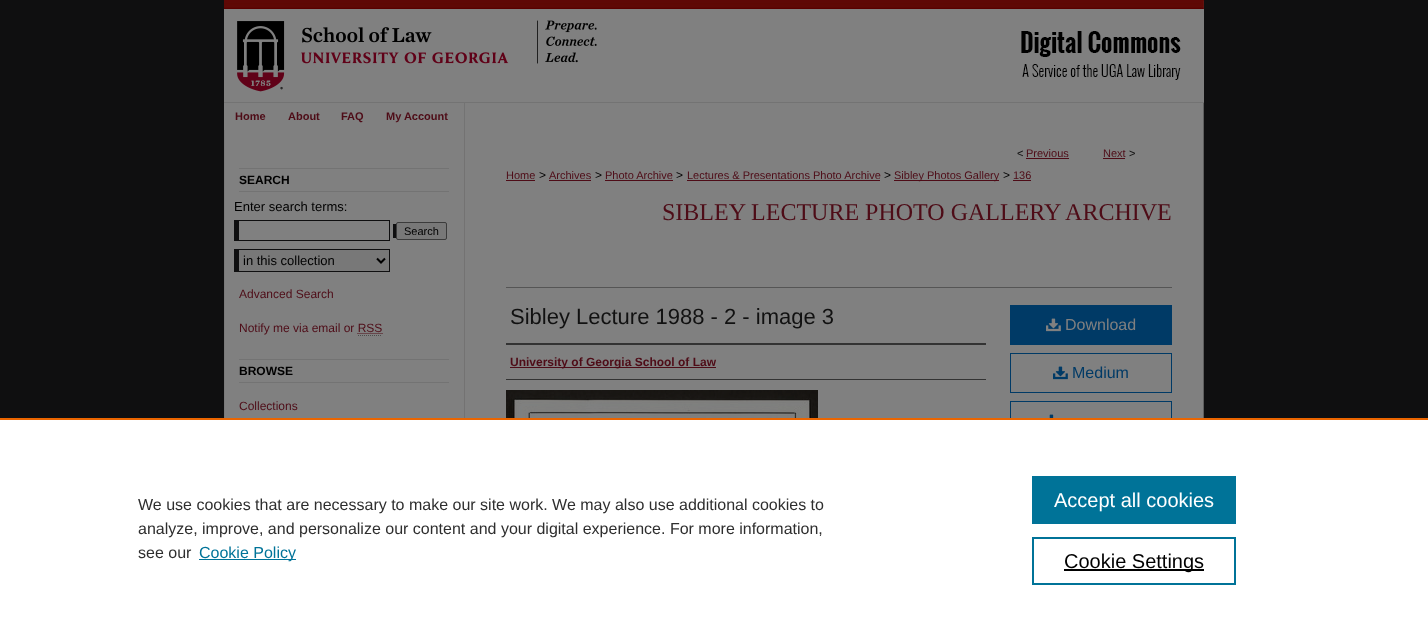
<svg xmlns="http://www.w3.org/2000/svg" width="1428" height="638" viewBox="0 0 1428 638">
  <style>
    .t1 { font: bold 11px Liberation Sans; fill: #4e0c17; }
    .t2 { font: bold 12px Liberation Sans; fill: #000; }
    .t3 { font: 13px Liberation Sans; fill: #000; }
    .t4 { font: 11px Liberation Sans; fill: #000; }
    .t5 { font: 12px Liberation Sans; fill: #4e0c17; }
    .t6 { font: 11px Liberation Sans; fill: #111; }
    .t7 { font: 11px Liberation Sans; fill: #4e0c17; }
    .t8 { font: 12px Liberation Sans; fill: #000; }
    .t9 { font: 24px Liberation Serif; fill: #4e0c17; }
    .t10 { font: 22px Liberation Sans; fill: #111; }
    .t11 { font: bold 12px Liberation Sans; fill: #4e0c17; }
    .t12 { font: 16px Liberation Sans; fill: #808080; }
    .t13 { font: 16px Liberation Sans; fill: #003a66; }
    .t14 { font: 16px Liberation Sans; fill: #2e2e2e; }
    .t15 { font: 16px Liberation Sans; fill: #007398; }
    .t16 { font: 20px Liberation Sans; fill: #fff; }
    .t17 { font: 20px Liberation Sans; fill: #000; }
  </style>
  <rect width="100%" height="100%" fill="#0f0f10"/>
  <rect x="224" y="102" width="980" height="1" fill="#737373"/>
  <image x="224" y="0" width="980" height="102" href="images/1.png"/>
  <image x="465" y="103" width="739" height="27" href="images/2.png"/>
  <rect x="224" y="103" width="240" height="27" fill="#808080"/>
  <rect x="464" y="103" width="1" height="27" fill="#737373"/>
  <text x="235" y="120" class="t1">Home</text>
  <text x="288" y="120" class="t1">About</text>
  <text x="341" y="120" class="t1">FAQ</text>
  <text x="386" y="120" class="t1">My Account</text>
  <image x="224" y="130" width="980" height="288" href="images/3.png"/>
  <rect x="239" y="168" width="210" height="1" fill="#737373"/>
  <rect x="239" y="191" width="210" height="1" fill="#737373"/>
  <text x="239" y="184" class="t2">SEARCH</text>
  <text x="234" y="211" class="t3">Enter search terms:</text>
  <rect x="234" y="220" width="156" height="21" fill="#0f0f10"/>
  <rect x="393" y="224" width="3" height="14" fill="#0f0f10"/>
  <rect x="239" y="221" width="150" height="19" fill="#808080"/>
  <rect x="396.5" y="222.5" width="50" height="17" rx="1.5" fill="#787878" stroke="#3b3b3b"/>
  <text x="404" y="235" class="t4">Search</text>
  <rect x="239" y="250" width="150" height="21" fill="#787878"/>
  <rect x="234" y="249" width="156" height="1" fill="#0f0f10"/>
  <rect x="389" y="249" width="1" height="23" fill="#0f0f10"/>
  <rect x="234" y="271" width="156" height="1" fill="#0f0f10"/>
  <rect x="234" y="249" width="5" height="23" fill="#0f0f10"/>
  <path d="M377 258.5L381 262.5L385 258.5" fill="none" stroke="#000" stroke-width="2"/>
  <text x="243" y="265" class="t3">in this collection</text>
  <text x="239" y="298" class="t5">Advanced Search</text>
  <text x="239" y="332" class="t5">Notify me via email or RSS</text>
  <path d="M357.5 333.5H382.5" fill="none" stroke="#4e0c17" stroke-dasharray="1 1"/>
  <path d="M358 335.5H382" fill="none" stroke="#4d4d4d" stroke-dasharray="1 1"/>
  <rect x="239" y="359" width="210" height="1" fill="#737373"/>
  <rect x="239" y="382" width="210" height="1" fill="#737373"/>
  <text x="239" y="375" class="t2">BROWSE</text>
  <text x="239" y="410" class="t5">Collections</text>
  <text x="1017" y="157" class="t6">&lt;</text>
  <text x="1026" y="157" class="t7">Previous</text>
  <rect x="1026" y="158" width="43" height="1" fill="#4e0c17"/>
  <text x="1103" y="157" class="t7">Next</text>
  <rect x="1103" y="158" width="22" height="1" fill="#4e0c17"/>
  <text x="1129" y="157" class="t6">&gt;</text>
  <text x="506" y="179" class="t7">Home</text>
  <rect x="506" y="180" width="29" height="1" fill="#4e0c17"/>
  <text x="539" y="179" class="t8">&gt;</text>
  <text x="549" y="179" class="t7">Archives</text>
  <rect x="549" y="180" width="42" height="1" fill="#4e0c17"/>
  <text x="595" y="179" class="t8">&gt;</text>
  <text x="605" y="179" class="t7">Photo Archive</text>
  <rect x="605" y="180" width="68" height="1" fill="#4e0c17"/>
  <text x="676" y="179" class="t8">&gt;</text>
  <text x="687" y="179" class="t7">Lectures &amp; Presentations Photo Archive</text>
  <rect x="687" y="180" width="193" height="1" fill="#4e0c17"/>
  <text x="884" y="179" class="t8">&gt;</text>
  <rect x="894" y="180" width="105" height="1" fill="#4e0c17"/>
  <text x="894" y="179" class="t7">Sibley Photos Gallery</text>
  <text x="1003" y="179" class="t8">&gt;</text>
  <text x="1013" y="179" class="t7">136</text>
  <rect x="1013" y="180" width="18" height="1" fill="#4e0c17"/>
  <text x="662" y="220" class="t9">SIBLEY LECTURE PHOTO GALLERY ARCHIVE</text>
  <rect x="506" y="287" width="666" height="1" fill="#555"/>
  <text x="510" y="324" class="t10">Sibley Lecture 1988 - 2 - image 3</text>
  <rect x="506" y="343" width="480" height="2" fill="#333"/>
  <rect x="506" y="379" width="480" height="1" fill="#333"/>
  <rect x="510" y="367" width="206" height="1" fill="#4e0c17"/>
  <text x="510" y="366" class="t11">University of Georgia School of Law</text>
  <image x="506" y="390" width="312" height="28" href="images/4.png"/>
  <rect x="1010" y="305" width="162" height="40" fill="#003a66"/>
  <image x="1046" y="318" width="15" height="14" href="images/5.png"/>
  <text x="1065" y="330" class="t12">Download</text>
  <rect x="1010.5" y="353.5" width="161" height="39" fill="none" stroke="#003a66"/>
  <image x="1053" y="366" width="15" height="14" href="images/6.png"/>
  <text x="1072" y="378" class="t13">Medium</text>
  <rect x="1010.5" y="401.5" width="161" height="39" fill="none" stroke="#003a66"/>
  <image x="1049" y="414" width="5" height="4" href="images/7.png"/>
  <rect x="0" y="420" width="1428" height="218" fill="#fff"/>
  <rect x="0" y="418" width="1428" height="2" fill="#eb6500"/>
  <text x="138" y="510" class="t14">We use cookies that are necessary to make our site work. We may also use additional cookies to</text>
  <text x="138" y="534" class="t14">analyze, improve, and personalize our content and your digital experience. For more information,</text>
  <text x="138" y="558" class="t14">see our</text>
  <rect x="199" y="559" width="97" height="1" fill="#007398"/>
  <text x="199" y="558" class="t15">Cookie Policy</text>
  <rect x="1032" y="476" width="204" height="48" fill="#007398"/>
  <text x="1054" y="507" class="t16">Accept all cookies</text>
  <rect x="1033" y="538" width="202" height="46" fill="none" stroke="#007398" stroke-width="2"/>
  <rect x="1064" y="569" width="140" height="2" fill="#000"/>
  <text x="1064" y="568" class="t17">Cookie Settings</text>
</svg>
